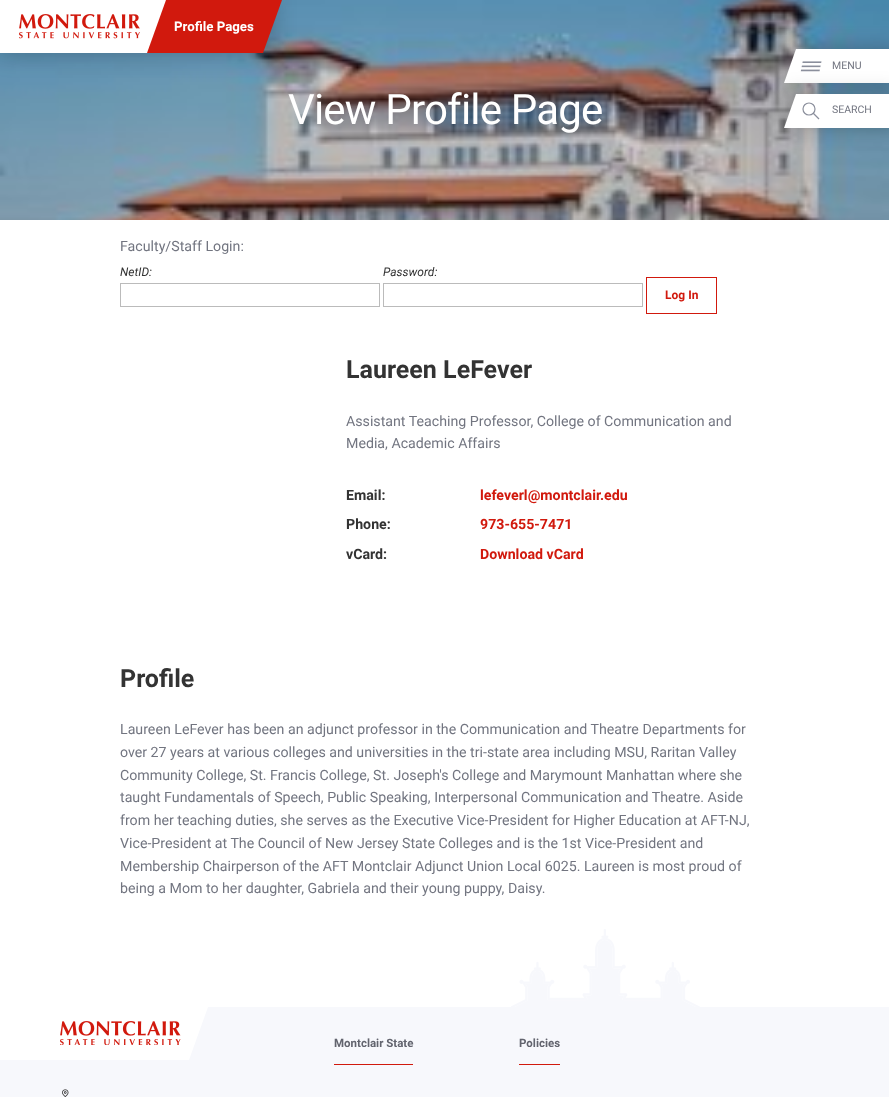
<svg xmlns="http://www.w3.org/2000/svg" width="889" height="1097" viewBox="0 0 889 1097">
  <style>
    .t1 { font: bold 13.25px Roboto; fill: #fff; }
    .t2 { font: 42px Roboto; letter-spacing: -0.8px; fill: #fff; }
    .t3 { font: 14.2px Roboto; fill: #727580; }
    .t4 { font: italic 12px Roboto; fill: #333; }
    .t5 { font: bold 12px Roboto; fill: #d1190d; }
    .t6 { font: bold 25px Roboto; fill: #333; }
    .t7 { font: bold 14.2px Roboto; fill: #333; }
    .t8 { font: bold 14.2px Roboto; fill: #d1190d; }
    .t9 { font: 10.5px Roboto; fill: #727580; }
    .t10 { font: bold 11.5px Roboto; fill: #62646e; }
  </style>
  <rect width="100%" height="100%" fill="#fff"/>
  <image x="0" y="0" width="889" height="220" href="images/2.png"/>
  <rect x="0" y="0" width="272" height="53" fill="#00000040" filter="blur(11.5px)"/>
  <path d="M-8 0H167L148 53H-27Z" fill="#fff"/>
  <image x="19" y="14" width="121" height="25" href="images/1.png"/>
  <path d="M166 0H282L263 53H147Z" fill="#d1190d"/>
  <text x="174" y="31" class="t1">Profile Pages</text>
  <text x="288" y="124" class="t2">View Profile Page</text>
  <text x="120" y="251" class="t3">Faculty/Staff Login:</text>
  <text x="120" y="276" class="t4">NetID:</text>
  <rect x="120.5" y="283.5" width="259" height="23" fill="none" stroke="#bbb"/>
  <text x="383" y="276" class="t4">Password:</text>
  <rect x="383.5" y="283.5" width="259" height="23" fill="none" stroke="#bbb"/>
  <rect x="646.5" y="277.5" width="70" height="36" fill="none" stroke="#d1190d"/>
  <text x="665" y="299" class="t5">Log In</text>
  <text x="346" y="378" class="t6">Laureen LeFever</text>
  <text x="346" y="426" class="t3">Assistant Teaching Professor, College of Communication and</text>
  <text x="346" y="448" class="t3">Media, Academic Affairs</text>
  <text x="346" y="500" class="t7">Email:</text>
  <text x="480" y="500" class="t8">lefeverl@montclair.edu</text>
  <text x="346" y="529" class="t7">Phone:</text>
  <text x="480" y="529" class="t8">973-655-7471</text>
  <text x="346" y="559" class="t7">vCard:</text>
  <text x="480" y="559" class="t8">Download vCard</text>
  <text x="120" y="687" class="t6">Profile</text>
  <text x="120" y="734" class="t3">Laureen LeFever has been an adjunct professor in the Communication and Theatre Departments for</text>
  <text x="120" y="757" class="t3">over 27 years at various colleges and universities in the tri-state area including MSU, Raritan Valley</text>
  <text x="120" y="780" class="t3">Community College, St. Francis College, St. Joseph's College and Marymount Manhattan where she</text>
  <text x="120" y="802" class="t3">taught Fundamentals of Speech, Public Speaking, Interpersonal Communication and Theatre. Aside</text>
  <text x="120" y="825" class="t3">from her teaching duties, she serves as the Executive Vice-President for Higher Education at AFT-NJ,</text>
  <text x="120" y="848" class="t3">Vice-President at The Council of New Jersey State Colleges and is the 1st Vice-President and</text>
  <text x="120" y="871" class="t3">Membership Chairperson of the AFT Montclair Adjunct Union Local 6025. Laureen is most proud of</text>
  <text x="120" y="893" class="t3">being a Mom to her daughter, Gabriela and their young puppy, Daisy.</text>
  <rect x="790" y="49" width="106" height="34" fill="#00000040" filter="blur(10.5px)"/>
  <path d="M796 49H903L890 83H784Z" fill="#fff"/>
  <image x="800" y="61" width="22" height="11" href="images/3.png"/>
  <text x="832" y="69" class="t9">MENU</text>
  <rect x="790" y="94" width="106" height="34" fill="#00000040" filter="blur(10.5px)"/>
  <path d="M796 94H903L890 128H784Z" fill="#fff"/>
  <circle cx="809" cy="109" r="6" fill="none" stroke="#8b8f9c" stroke-width="1.2"/>
  <path d="M819 119L813 113" fill="none" stroke="#8b8f9c" stroke-width="1.2"/>
  <text x="832" y="113" class="t9">SEARCH</text>
  <rect x="0" y="1007" width="889" height="90" fill="#f7f8fc"/>
  <image x="511" y="929" width="189" height="78" href="images/4.png"/>
  <path d="M-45 1007H208L189 1060H-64Z" fill="#fff"/>
  <image x="60" y="1021" width="121" height="24" href="images/5.png"/>
  <image x="62" y="1089" width="7" height="8" href="images/6.png"/>
  <rect x="334" y="1064" width="79" height="1" fill="#d1190d"/>
  <text x="334" y="1047" class="t10">Montclair State</text>
  <rect x="519" y="1064" width="41" height="1" fill="#d1190d"/>
  <text x="519" y="1047" class="t10">Policies</text>
</svg>
